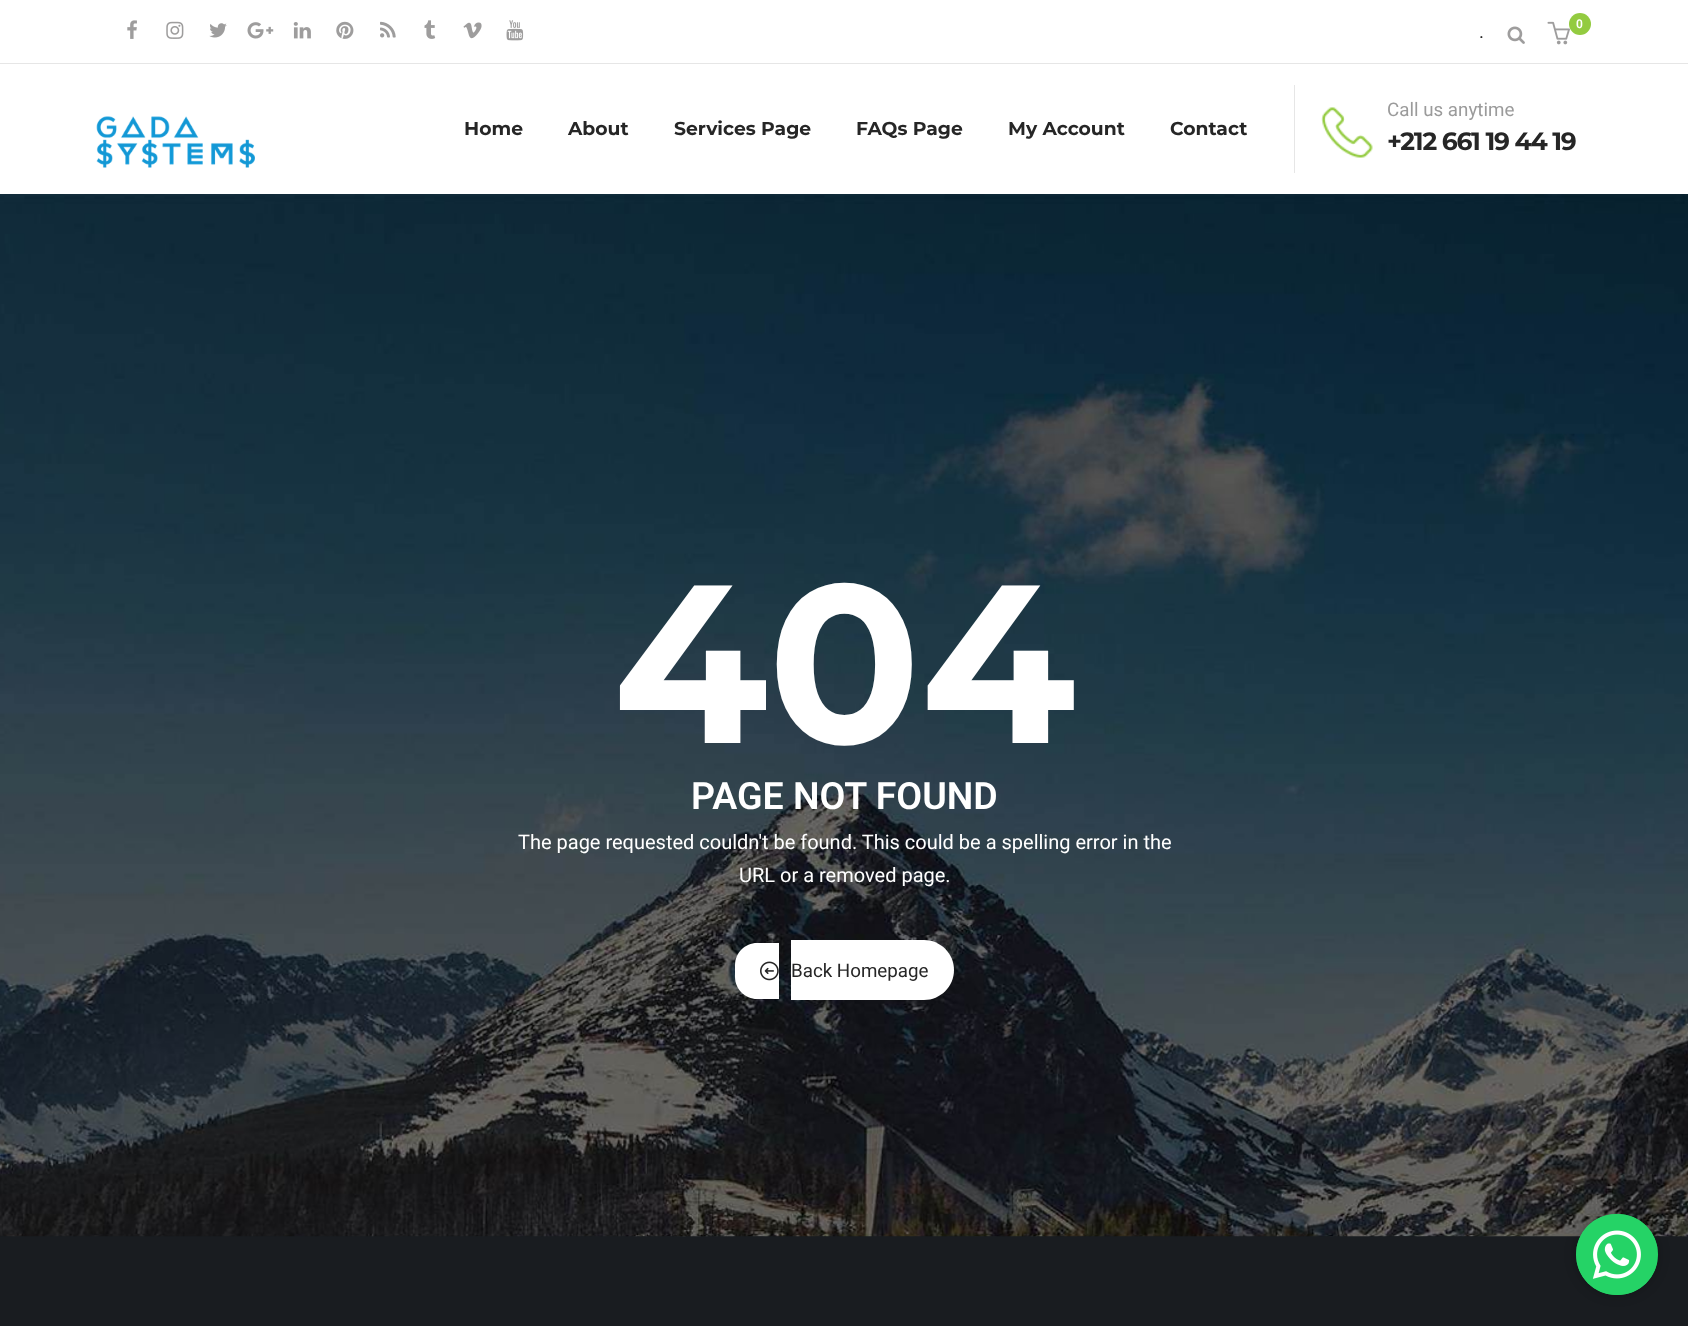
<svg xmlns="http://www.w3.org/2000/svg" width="1688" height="1326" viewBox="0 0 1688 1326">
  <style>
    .t1 { font: 600 12px Roboto; fill: #fff; }
    .t2 { font: 18.75px Roboto; fill: #262626; }
    .t3 { font: bold 18.75px Montserrat; fill: #262626; }
    .t4 { font: 18.75px Roboto; fill: #9b9b9b; }
    .t5 { font: bold 25px Montserrat; letter-spacing: -1.25px; fill: #262626; }
    .t6 { font: bold 225px Montserrat; fill: #fff; }
    .t7 { font: 600 37.5px Roboto; fill: #fff; }
    .t8 { font: 20px Roboto; fill: #fff; }
  </style>
  <rect width="100%" height="100%" fill="#191c20"/>
  <rect x="0" y="0" width="1688" height="194" fill="#fff"/>
  <rect x="0" y="63" width="1688" height="1" fill="#e6e6e6"/>
  <image x="127" y="20" width="10" height="19" href="images/1.png"/>
  <image x="166" y="21" width="18" height="18" href="images/2.png"/>
  <image x="209" y="23" width="18" height="15" href="images/3.png"/>
  <image x="247" y="22" width="27" height="17" href="images/4.png"/>
  <image x="293" y="22" width="18" height="17" href="images/5.png"/>
  <image x="336" y="21" width="18" height="18" href="images/6.png"/>
  <image x="380" y="21" width="16" height="17" href="images/7.png"/>
  <image x="424" y="20" width="12" height="19" href="images/8.png"/>
  <image x="463" y="22" width="19" height="17" href="images/9.png"/>
  <image x="506" y="20" width="18" height="21" href="images/10.png"/>
  <image x="1547" y="21" width="23" height="24" href="images/11.png"/>
  <circle cx="1580" cy="24" r="11" fill="#93cb40"/>
  <text x="1576" y="28" class="t1">0</text>
  <text x="1479" y="38" class="t2">.</text>
  <image x="1507" y="26" width="18" height="18" href="images/12.png"/>
  <image x="96" y="116" width="159" height="52" href="images/13.png"/>
  <text x="464" y="135" class="t3">Home</text>
  <text x="568" y="135" class="t3">About</text>
  <text x="674" y="135" class="t3">Services Page</text>
  <text x="856" y="135" class="t3">FAQs Page</text>
  <text x="1008" y="135" class="t3">My Account</text>
  <text x="1170" y="135" class="t3">Contact</text>
  <rect x="1294" y="85" width="1" height="88" fill="#e6e6e6"/>
  <image x="1321" y="107" width="52" height="51" href="images/14.png"/>
  <text x="1387" y="116" class="t4">Call us anytime</text>
  <text x="1387" y="150" class="t5">+212 661 19 44 19</text>
  <image x="0" y="194" width="1688" height="1043" href="images/15.png"/>
  <text x="613" y="743" class="t6">404</text>
  <text x="691" y="809" class="t7">PAGE NOT FOUND</text>
  <text x="518" y="849" class="t8">The page requested couldn't be found. This could be a spelling error in the</text>
  <text x="739" y="882" class="t8">URL or a removed page.</text>
  <path d="M757 943H779V999H757C745 999 735 989 735 977V965C735 953 745 943 757 943Z" fill="#fff"/>
  <image x="760" y="961" width="19" height="20" href="images/16.png"/>
  <path d="M791 940H924C940.5 940 954 953.5 954 970C954 986.5 940.5 1000 924 1000H791Z" fill="#fff"/>
  <text x="791" y="977" class="t2">Back Homepage</text>
  <rect x="1576" y="1214" width="82" height="81" rx="40.5" fill="#00000040" filter="blur(6px)"/>
  <rect x="1576" y="1214" width="82" height="81" rx="40.5" fill="#25d366"/>
  <image x="1576" y="1214" width="82" height="81" href="images/17.png"/>
</svg>
